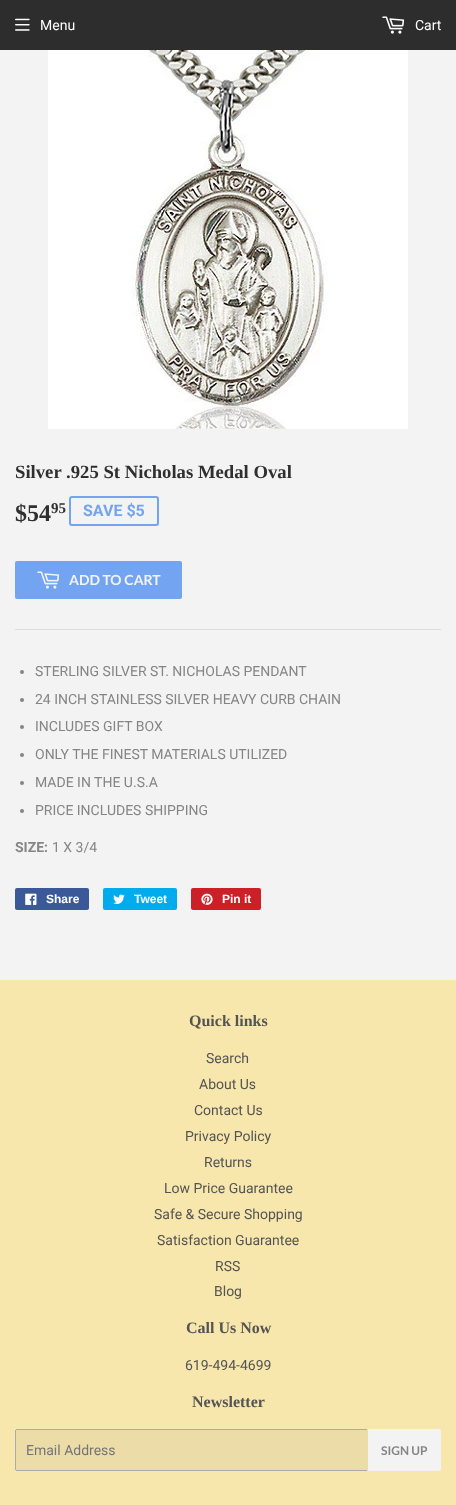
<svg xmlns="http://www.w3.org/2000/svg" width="456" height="1505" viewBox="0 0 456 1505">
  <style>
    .t1 { font: 14px Roboto; fill: #fff; }
    .t2 { font: bold 18.7px Liberation Serif; fill: #2f2f2f; }
    .t3 { font: bold 24px Liberation Serif; fill: #2f2f2f; }
    .t4 { font: bold 15px Liberation Serif; fill: #2f2f2f; }
    .t5 { font: bold 16px Roboto; fill: #72a4f2; }
    .t6 { font: bold 14px Lato; fill: #f3f3f3; }
    .t7 { font: 14px Roboto; fill: #858585; }
    .t8 { font: bold 14px Roboto; fill: #858585; }
    .t9 { font: bold 12px Liberation Sans; fill: #fff; }
    .t10 { font: bold 16px Liberation Serif; fill: #545454; }
    .t11 { font: 14px Roboto; fill: #545454; }
    .t12 { font: 14px Roboto; fill: #757575; }
    .t13 { font: bold 12px Lato; fill: #858585; }
  </style>
  <rect width="100%" height="100%" fill="#f3f3f3"/>
  <rect x="0" y="0" width="456" height="50" fill="#2d2d2d"/>
  <image x="15" y="18" width="15" height="13" href="images/1.png"/>
  <text x="40" y="30" class="t1">Menu</text>
  <image x="382" y="16" width="23" height="18" href="images/2.png"/>
  <text x="415" y="30" class="t1">Cart</text>
  <image x="48" y="50" width="360" height="379" href="images/3.png"/>
  <text x="15" y="478" class="t2">Silver .925 St Nicholas Medal Oval</text>
  <text x="15" y="521" class="t3">$54</text>
  <text x="51" y="513" class="t4">95</text>
  <rect x="70" y="497" width="88" height="28" rx="2" fill="none" stroke="#72a4f2" stroke-width="2"/>
  <text x="83" y="516" class="t5">SAVE $5</text>
  <rect x="15" y="561" width="167" height="38" rx="2" fill="#72a4f2"/>
  <image x="37" y="571" width="23" height="18" href="images/4.png"/>
  <text x="69" y="585" class="t6">ADD TO CART</text>
  <rect x="15" y="629" width="426" height="1" fill="#dedede"/>
  <circle cx="22" cy="672" r="2" fill="#858585"/>
  <text x="35" y="676" class="t7">STERLING SILVER ST. NICHOLAS PENDANT</text>
  <circle cx="22" cy="700" r="2" fill="#858585"/>
  <text x="35" y="704" class="t7">24 INCH STAINLESS SILVER HEAVY CURB CHAIN</text>
  <circle cx="22" cy="727" r="2" fill="#858585"/>
  <text x="35" y="731" class="t7">INCLUDES GIFT BOX</text>
  <circle cx="22" cy="755" r="2" fill="#858585"/>
  <text x="35" y="759" class="t7">ONLY THE FINEST MATERIALS UTILIZED</text>
  <circle cx="22" cy="783" r="2" fill="#858585"/>
  <text x="35" y="787" class="t7">MADE IN THE U.S.A</text>
  <circle cx="22" cy="811" r="2" fill="#858585"/>
  <text x="35" y="815" class="t7">PRICE INCLUDES SHIPPING</text>
  <text x="15" y="852" class="t8">SIZE:</text>
  <text x="52" y="852" class="t7">1 X 3/4</text>
  <rect x="15" y="888" width="74" height="22" rx="2" fill="#3b5998"/>
  <image x="25" y="893" width="12" height="12" href="images/5.png"/>
  <text x="46" y="903" class="t9">Share</text>
  <rect x="103" y="888" width="74" height="22" rx="2" fill="#00aced"/>
  <image x="113" y="894" width="12" height="10" href="images/6.png"/>
  <text x="134" y="903" class="t9">Tweet</text>
  <rect x="191" y="888" width="70" height="22" rx="2" fill="#cb2027"/>
  <image x="201" y="893" width="12" height="12" href="images/7.png"/>
  <text x="222" y="903" class="t9">Pin it</text>
  <rect x="0" y="980" width="456" height="525" fill="#f7e7ac"/>
  <text x="189" y="1026" class="t10">Quick links</text>
  <text x="206" y="1063" class="t11">Search</text>
  <text x="199" y="1089" class="t11">About Us</text>
  <text x="194" y="1115" class="t11">Contact Us</text>
  <text x="185" y="1141" class="t11">Privacy Policy</text>
  <text x="204" y="1167" class="t11">Returns</text>
  <text x="164" y="1193" class="t11">Low Price Guarantee</text>
  <text x="154" y="1219" class="t11">Safe &amp; Secure Shopping</text>
  <text x="157" y="1245" class="t11">Satisfaction Guarantee</text>
  <text x="215" y="1271" class="t11">RSS</text>
  <text x="214" y="1296" class="t11">Blog</text>
  <text x="186" y="1333" class="t10">Call Us Now</text>
  <text x="185" y="1370" class="t11">619-494-4699</text>
  <text x="192" y="1407" class="t10">Newsletter</text>
  <rect x="15" y="1429" width="353" height="42" rx="2" fill="#ecdda8"/>
  <rect x="16" y="1429" width="351" height="1" fill="#ababab"/>
  <rect x="16" y="1470" width="351" height="1" fill="#ababab"/>
  <rect x="15" y="1430" width="1" height="40" fill="#ababab"/>
  <text x="26" y="1455" class="t12">Email Address</text>
  <path d="M368 1429H439C440 1429 441 1430 441 1431V1469C441 1470 440 1471 439 1471H368Z" fill="#f3f3f3"/>
  <text x="381" y="1455" class="t13">SIGN UP</text>
</svg>
